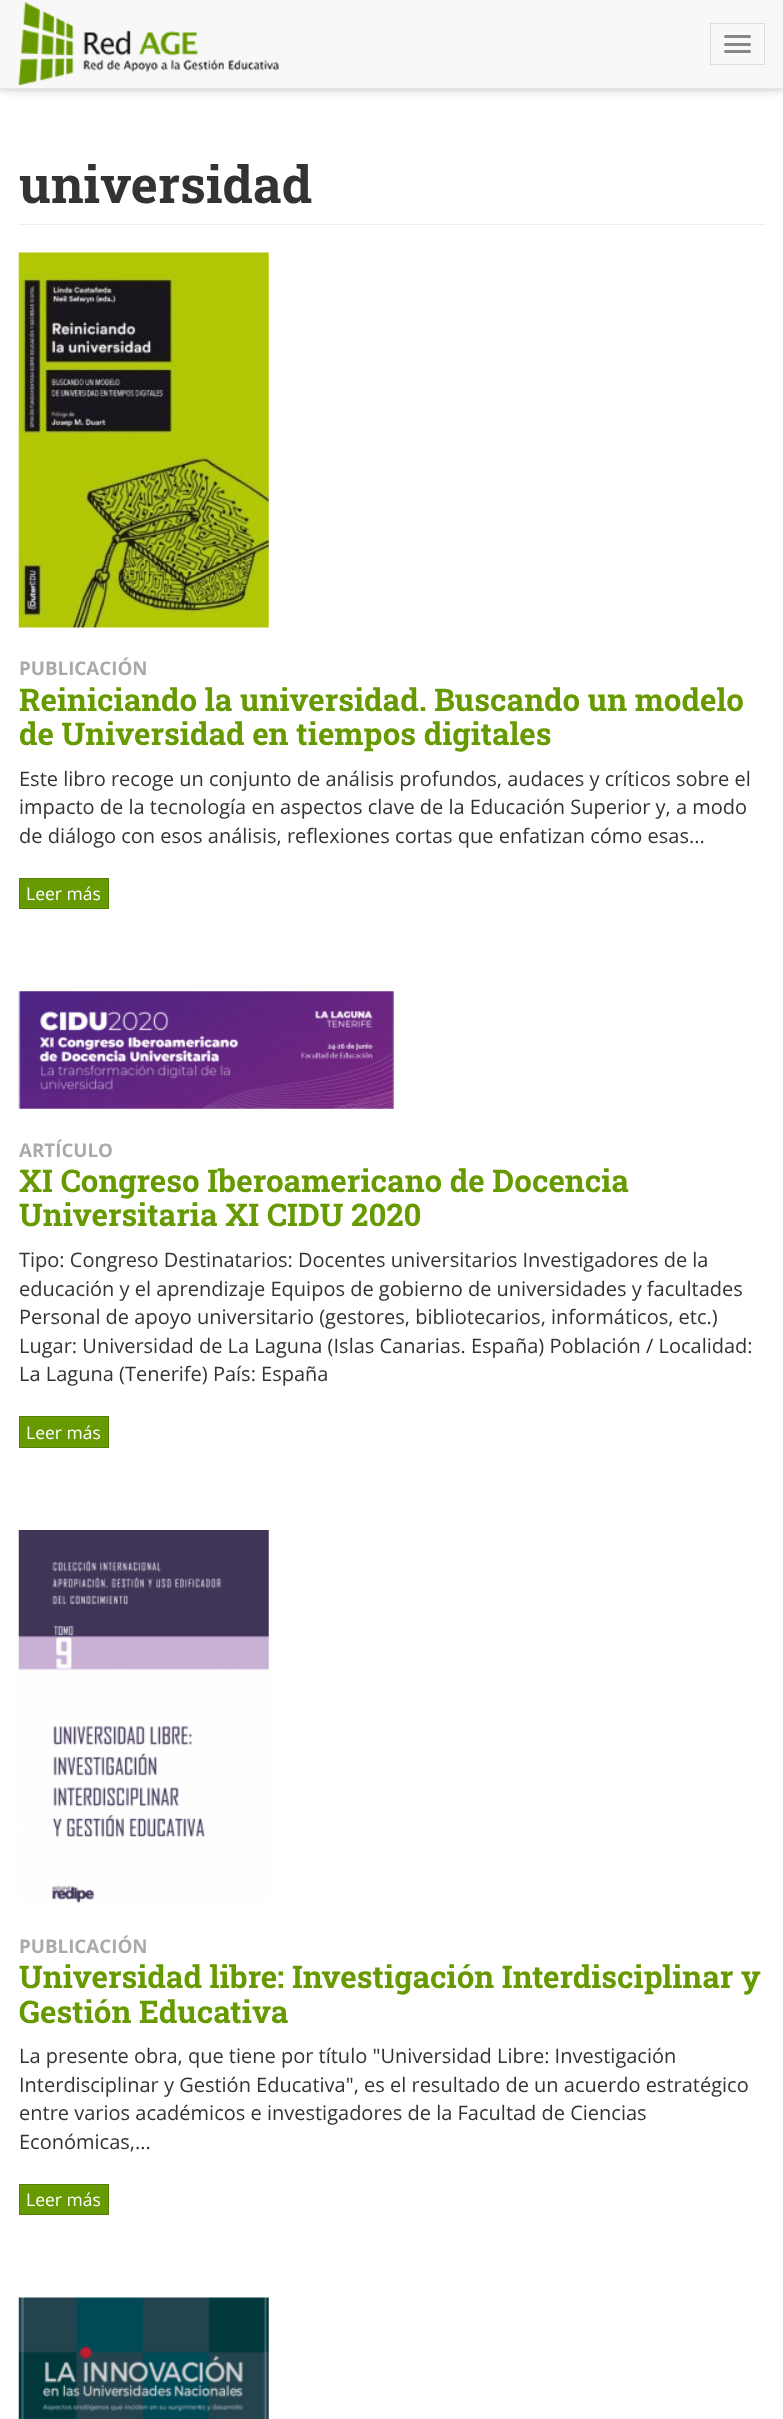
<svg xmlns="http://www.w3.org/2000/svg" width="783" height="2419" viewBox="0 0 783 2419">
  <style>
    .t1 { font: bold 51.25px Roboto Slab; fill: #333; }
    .t2 { font: bold 18.75px Open Sans; fill: #aaa; }
    .t3 { font: bold 31.25px Roboto Slab; fill: #669a00; }
    .t4 { font: 20px Open Sans; fill: #333; }
    .t5 { font: 17.5px Open Sans; fill: #fff; }
  </style>
  <rect width="100%" height="100%" fill="#fff"/>
  <rect x="0" y="0" width="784" height="89" fill="#bbb" filter="blur(5px)"/>
  <rect x="0" y="0" width="783" height="88" fill="#f8f8f8"/>
  <rect x="0" y="88" width="783" height="1" fill="#e7e7e7"/>
  <image x="18" y="2" width="261" height="83" href="images/1.png"/>
  <rect x="710.5" y="23.5" width="54" height="41" fill="none" stroke="#ddd"/>
  <rect x="724" y="35" width="27" height="3" rx="1.5" fill="#888"/>
  <rect x="724" y="43" width="27" height="3" rx="1.5" fill="#888"/>
  <rect x="724" y="50" width="27" height="3" rx="1.5" fill="#888"/>
  <rect x="19" y="224" width="746" height="1" fill="#eee"/>
  <text x="19" y="203" class="t1">universidad</text>
  <image x="18" y="252" width="251" height="376" href="images/2.png"/>
  <text x="19" y="675" class="t2">PUBLICACIÓN</text>
  <text x="19" y="711" class="t3">Reiniciando la universidad. Buscando un modelo</text>
  <text x="19" y="745" class="t3">de Universidad en tiempos digitales</text>
  <text x="19" y="786" class="t4">Este libro recoge un conjunto de análisis profundos, audaces y críticos sobre el</text>
  <text x="19" y="814" class="t4">impacto de la tecnología en aspectos clave de la Educación Superior y, a modo</text>
  <text x="19" y="843" class="t4">de diálogo con esos análisis, reflexiones cortas que enfatizan cómo esas...</text>
  <rect x="19.5" y="878.5" width="89" height="30" fill="#669a00" stroke="#558100"/>
  <text x="26" y="900" class="t5">Leer más</text>
  <image x="18" y="991" width="376" height="118" href="images/3.png"/>
  <text x="19" y="1157" class="t2">ARTÍCULO</text>
  <text x="19" y="1192" class="t3">XI Congreso Iberoamericano de Docencia</text>
  <text x="19" y="1226" class="t3">Universitaria XI CIDU 2020</text>
  <text x="19" y="1267" class="t4">Tipo: Congreso Destinatarios: Docentes universitarios Investigadores de la</text>
  <text x="19" y="1296" class="t4">educación y el aprendizaje Equipos de gobierno de universidades y facultades</text>
  <text x="19" y="1324" class="t4">Personal de apoyo universitario (gestores, bibliotecarios, informáticos, etc.)</text>
  <text x="19" y="1353" class="t4">Lugar: Universidad de La Laguna (Islas Canarias. España) Población / Localidad:</text>
  <text x="19" y="1381" class="t4">La Laguna (Tenerife) País: España</text>
  <rect x="19.5" y="1416.5" width="89" height="31" fill="#669a00" stroke="#558100"/>
  <text x="26" y="1439" class="t5">Leer más</text>
  <image x="18" y="1530" width="251" height="373" href="images/4.png"/>
  <text x="19" y="1953" class="t2">PUBLICACIÓN</text>
  <text x="19" y="1988" class="t3">Universidad libre: Investigación Interdisciplinar y</text>
  <text x="19" y="2023" class="t3">Gestión Educativa</text>
  <text x="19" y="2063" class="t4">La presente obra, que tiene por título "Universidad Libre: Investigación</text>
  <text x="19" y="2092" class="t4">Interdisciplinar y Gestión Educativa", es el resultado de un acuerdo estratégico</text>
  <text x="19" y="2120" class="t4">entre varios académicos e investigadores de la Facultad de Ciencias</text>
  <text x="19" y="2149" class="t4">Económicas,...</text>
  <rect x="19.5" y="2184.5" width="89" height="30" fill="#669a00" stroke="#558100"/>
  <text x="26" y="2206" class="t5">Leer más</text>
  <image x="18" y="2297" width="251" height="122" href="images/5.png"/>
</svg>
